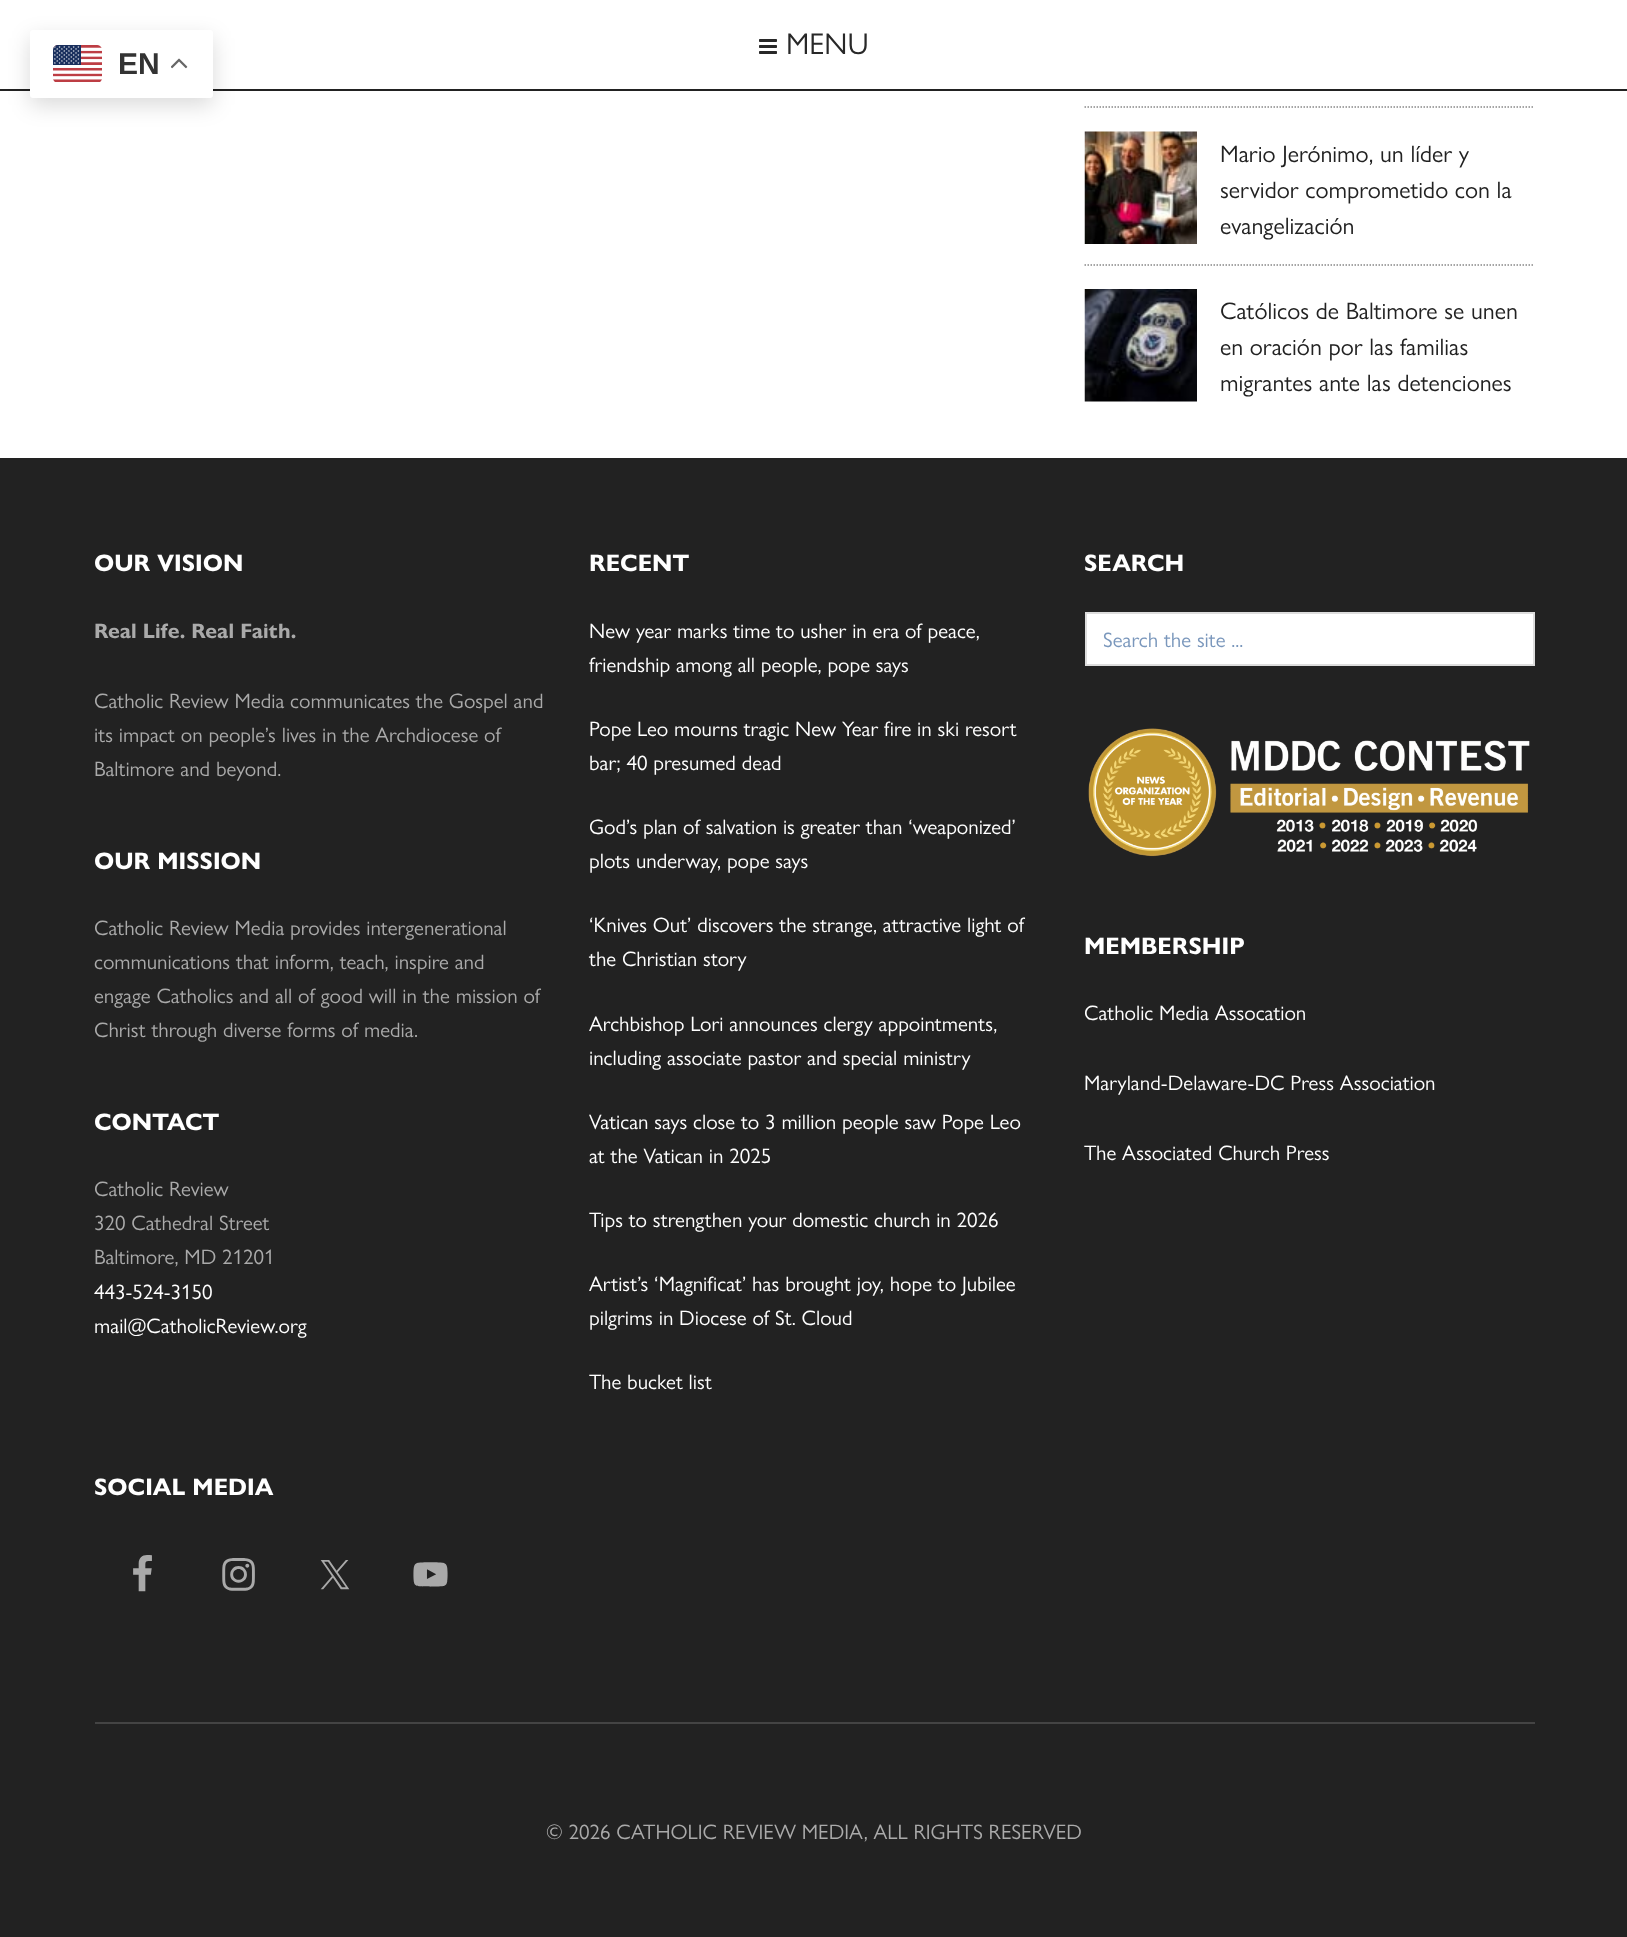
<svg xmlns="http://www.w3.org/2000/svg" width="1627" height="1937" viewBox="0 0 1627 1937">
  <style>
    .t1 { font: 30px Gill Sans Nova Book; fill: #282828; }
    .t2 { font: 24px Gill Sans Nova Book; fill: #222; }
    .t3 { font: bold 24px Gill Sans Nova Book; fill: #fff; }
    .t4 { font: bold 21px Gill Sans Nova Book; fill: #aaa; }
    .t5 { font: 21px Gill Sans Nova Book; fill: #aaa; }
    .t6 { font: 21px Gill Sans Nova Book; fill: #fff; }
    .t7 { font: 21px Gill Sans Nova Book; fill: #7a97bc; }
    .t8 { font: bold 30px Liberation Sans; fill: #333; }
  </style>
  <rect width="100%" height="100%" fill="#fff"/>
  <rect x="0" y="89" width="1627" height="2" fill="#222"/>
  <image x="759" y="39" width="18" height="15" href="images/1.png"/>
  <text x="786" y="54" class="t1">MENU</text>
  <path d="M1084.5 107H1534.5" fill="none" stroke="#888" stroke-width="1.5" stroke-dasharray="1.5 1.5"/>
  <path d="M1084.5 265H1534.5" fill="none" stroke="#888" stroke-width="1.5" stroke-dasharray="1.5 1.5"/>
  <image x="1084" y="131" width="113" height="113" href="images/2.png"/>
  <text x="1220" y="162" class="t2">Mario Jerónimo, un líder y</text>
  <text x="1220" y="198" class="t2">servidor comprometido con la</text>
  <text x="1220" y="234" class="t2">evangelización</text>
  <image x="1084" y="289" width="113" height="113" href="images/3.png"/>
  <text x="1220" y="319" class="t2">Católicos de Baltimore se unen</text>
  <text x="1220" y="355" class="t2">en oración por las familias</text>
  <text x="1220" y="391" class="t2">migrantes ante las detenciones</text>
  <rect x="0" y="458" width="1627" height="1479" fill="#222"/>
  <text x="94" y="571" class="t3">OUR VISION</text>
  <text x="94" y="638" class="t4">Real Life. Real Faith.</text>
  <text x="94" y="708" class="t5">Catholic Review Media communicates the Gospel and</text>
  <text x="94" y="742" class="t5">its impact on people’s lives in the Archdiocese of</text>
  <text x="94" y="776" class="t5">Baltimore and beyond.</text>
  <text x="94" y="869" class="t3">OUR MISSION</text>
  <text x="94" y="935" class="t5">Catholic Review Media provides intergenerational</text>
  <text x="94" y="969" class="t5">communications that inform, teach, inspire and</text>
  <text x="94" y="1003" class="t5">engage Catholics and all of good will in the mission of</text>
  <text x="94" y="1037" class="t5">Christ through diverse forms of media.</text>
  <text x="94" y="1130" class="t3">CONTACT</text>
  <text x="94" y="1196" class="t5">Catholic Review</text>
  <text x="94" y="1230" class="t5">320 Cathedral Street</text>
  <text x="94" y="1264" class="t5">Baltimore, MD 21201</text>
  <text x="94" y="1299" class="t6">443-524-3150</text>
  <text x="94" y="1333" class="t6">mail@CatholicReview.org</text>
  <text x="94" y="1495" class="t3">SOCIAL MEDIA</text>
  <image x="133" y="1555" width="19" height="37" href="images/4.png"/>
  <image x="222" y="1558" width="33" height="33" href="images/5.png"/>
  <image x="320" y="1560" width="30" height="30" href="images/6.png"/>
  <image x="413" y="1562" width="35" height="25" href="images/7.png"/>
  <text x="589" y="571" class="t3">RECENT</text>
  <text x="589" y="638" class="t6">New year marks time to usher in era of peace,</text>
  <text x="589" y="672" class="t6">friendship among all people, pope says</text>
  <text x="589" y="736" class="t6">Pope Leo mourns tragic New Year fire in ski resort</text>
  <text x="589" y="770" class="t6">bar; 40 presumed dead</text>
  <text x="589" y="834" class="t6">God’s plan of salvation is greater than ‘weaponized’</text>
  <text x="589" y="868" class="t6">plots underway, pope says</text>
  <text x="589" y="932" class="t6">‘Knives Out’ discovers the strange, attractive light of</text>
  <text x="589" y="966" class="t6">the Christian story</text>
  <text x="589" y="1031" class="t6">Archbishop Lori announces clergy appointments,</text>
  <text x="589" y="1065" class="t6">including associate pastor and special ministry</text>
  <text x="589" y="1129" class="t6">Vatican says close to 3 million people saw Pope Leo</text>
  <text x="589" y="1163" class="t6">at the Vatican in 2025</text>
  <text x="589" y="1227" class="t6">Tips to strengthen your domestic church in 2026</text>
  <text x="589" y="1291" class="t6">Artist’s ‘Magnificat’ has brought joy, hope to Jubilee</text>
  <text x="589" y="1325" class="t6">pilgrims in Diocese of St. Cloud</text>
  <text x="589" y="1389" class="t6">The bucket list</text>
  <text x="1084" y="571" class="t3">SEARCH</text>
  <rect x="1086" y="613" width="448" height="52" fill="#fff" stroke="#ddd" stroke-width="2"/>
  <text x="1103" y="647" class="t7">Search the site ...</text>
  <image x="1088" y="728" width="442" height="129" href="images/8.png"/>
  <text x="1084" y="954" class="t3">MEMBERSHIP</text>
  <text x="1084" y="1020" class="t6">Catholic Media Assocation</text>
  <text x="1084" y="1090" class="t6">Maryland-Delaware-DC Press Association</text>
  <text x="1084" y="1160" class="t6">The Associated Church Press</text>
  <rect x="95" y="1722" width="1440" height="2" fill="#444"/>
  <text x="546" y="1839" class="t5">© 2026 CATHOLIC REVIEW MEDIA, ALL RIGHTS RESERVED</text>
  <rect x="30" y="38" width="183" height="67" rx="3" fill="#00000026" filter="blur(11px)"/>
  <rect x="30" y="30" width="183" height="68" rx="3" fill="#fff"/>
  <image x="53" y="45" width="49" height="37" href="images/9.png"/>
  <text x="118" y="74" class="t8">EN</text>
  <image x="171" y="58" width="17" height="11" href="images/10.png"/>
</svg>
